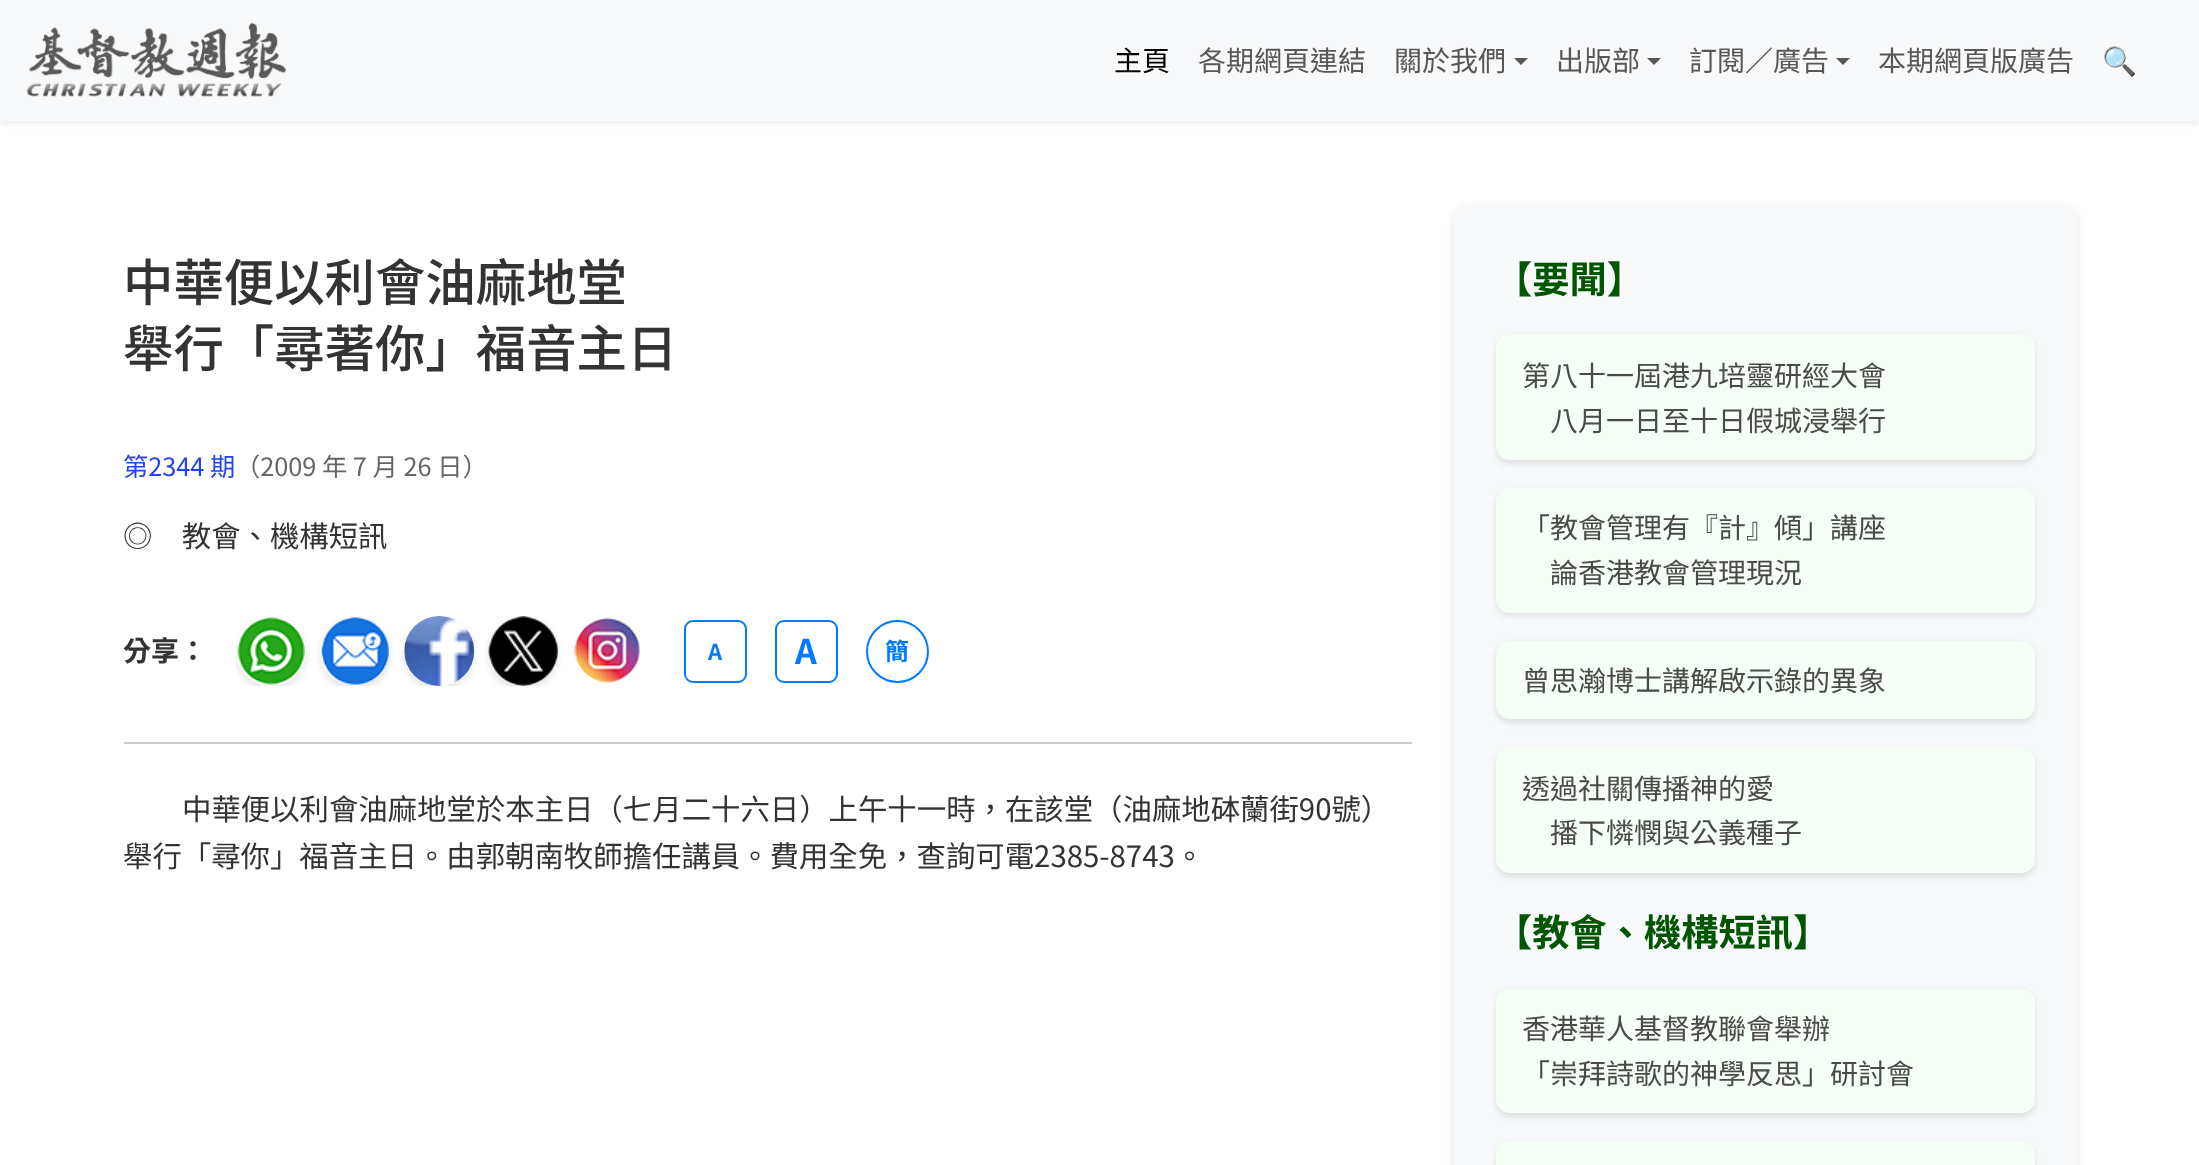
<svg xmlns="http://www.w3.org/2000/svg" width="2199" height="1165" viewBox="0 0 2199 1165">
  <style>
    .t1 { font: 28px Noto Sans TC; fill: #000; }
    .t2 { font: 28px Noto Sans TC; fill: #575758; }
    .t3 { font: 28px Noto Color Emoji; fill: #575758; }
    .t4 { font: 500 50.4px Noto Sans TC; fill: #333; }
    .t5 { font: 25.25px Noto Sans TC; fill: #24e; }
    .t6 { font: 25.25px Noto Sans TC; fill: #666; }
    .t7 { font: 29.4px Noto Sans TC; fill: #333; }
    .t8 { font: bold 28px Noto Sans TC; fill: #333; }
    .t9 { font: bold 22px Noto Sans TC; fill: #007bff; }
    .t10 { font: bold 34px Noto Sans TC; fill: #007bff; }
    .t11 { font: bold 24px Noto Sans TC; fill: #007bff; }
    .t12 { font: bold 37.25px Noto Sans TC; fill: #050; }
    .t13 { font: 28px Noto Sans TC; fill: #4a4a4a; }
  </style>
  <defs>
    <clipPath id="clip1"><rect x="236" y="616" width="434" height="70"/></clipPath>
    <clipPath id="clip2"><path d="M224 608H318V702H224ZM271 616C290.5 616 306 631.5 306 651C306 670.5 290.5 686 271 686C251.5 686 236 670.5 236 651C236 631.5 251.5 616 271 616Z" clip-rule="evenodd"/></clipPath>
    <clipPath id="clip3"><path d="M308 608H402V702H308ZM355 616C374.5 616 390 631.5 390 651C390 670.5 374.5 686 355 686C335.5 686 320 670.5 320 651C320 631.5 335.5 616 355 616Z" clip-rule="evenodd"/></clipPath>
    <clipPath id="clip4"><path d="M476 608H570V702H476ZM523 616C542.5 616 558 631.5 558 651C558 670.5 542.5 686 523 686C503.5 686 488 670.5 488 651C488 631.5 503.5 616 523 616Z" clip-rule="evenodd"/></clipPath>
    <clipPath id="clip5"><rect x="1523" y="765" width="280" height="91"/></clipPath>
  </defs>
  <rect width="100%" height="100%" fill="#fff"/>
  <rect x="0" y="4" width="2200" height="120" fill="#00000012" filter="blur(3.5px)"/>
  <rect x="0" y="0" width="2199" height="121" fill="#f8f9fa"/>
  <image x="26" y="22" width="260" height="75" href="images/1.png"/>
  <text x="1114" y="71" class="t1">主頁</text>
  <text x="1198" y="71" class="t2">各期網頁連結</text>
  <text x="1394" y="71" class="t2">關於我們</text>
  <path d="M1514 58H1528L1521 65Z" fill="#575758"/>
  <text x="1556" y="71" class="t2">出版部</text>
  <path d="M1647 58H1661L1654 65Z" fill="#575758"/>
  <text x="1689" y="71" class="t2">訂閱／廣告</text>
  <path d="M1836 58H1850L1843 65Z" fill="#575758"/>
  <text x="1878" y="71" class="t2">本期網頁版廣告</text>
  <text x="2102" y="71" class="t3">🔍</text>
  <text x="123" y="301" class="t4">中華便以利會油麻地堂</text>
  <text x="123" y="367" class="t4">舉行「尋著你」福音主日</text>
  <text x="123" y="476" class="t5">第2344 期</text>
  <text x="235" y="476" class="t6">（2009 年 7 月 26 日）</text>
  <text x="123" y="547" class="t7">◎　教會、機構短訊</text>
  <text x="123" y="661" class="t8">分享：</text>
  <g clip-path="url(#clip1)">
    <g clip-path="url(#clip2)">
      <rect x="236" y="620" width="70" height="70" rx="35" fill="#0000001a" filter="blur(3.5px)"/>
    </g>
  </g>
  <image x="237" y="617" width="69" height="68" href="images/2.png"/>
  <g clip-path="url(#clip1)">
    <g clip-path="url(#clip3)">
      <rect x="320" y="620" width="70" height="70" rx="35" fill="#0000001a" filter="blur(3.5px)"/>
    </g>
  </g>
  <image x="321" y="617" width="69" height="68" href="images/3.png"/>
  <g clip-path="url(#clip1)">
    <rect x="404" y="620" width="70" height="70" rx="35" fill="#0000001a" filter="blur(3.5px)"/>
  </g>
  <image x="404" y="616" width="71" height="70" href="images/4.png"/>
  <g clip-path="url(#clip1)">
    <g clip-path="url(#clip4)">
      <rect x="488" y="620" width="70" height="70" rx="35" fill="#0000001a" filter="blur(3.5px)"/>
    </g>
  </g>
  <image x="488" y="616" width="71" height="70" href="images/5.png"/>
  <image x="573" y="617" width="67" height="66" href="images/6.png"/>
  <rect x="685" y="621" width="61" height="61" rx="8" fill="none" stroke="#007bff" stroke-width="2"/>
  <text x="708" y="660" class="t9">A</text>
  <rect x="776" y="621" width="61" height="61" rx="8" fill="none" stroke="#007bff" stroke-width="2"/>
  <text x="795" y="664" class="t10">A</text>
  <circle cx="897.5" cy="651.5" r="30.5" fill="none" stroke="#007bff" stroke-width="2"/>
  <text x="885" y="660" class="t11">簡</text>
  <rect x="124" y="742" width="1288" height="2" fill="#ccc"/>
  <text x="182" y="820" class="t7">中華便以利會油麻地堂於本主日（七月二十六日）上午十一時，在該堂（油麻地砵蘭街90號）</text>
  <text x="123" y="867" class="t7">舉行「尋你」福音主日。由郭朝南牧師擔任講員。費用全免，查詢可電2385-8743。</text>
  <rect x="1454" y="208" width="623" height="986" rx="14" fill="#0000001a" filter="blur(5px)"/>
  <rect x="1454" y="205" width="623" height="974" rx="14" fill="#f8f9fa"/>
  <text x="1495" y="293" class="t12">【要聞】</text>
  <rect x="1496" y="338" width="539" height="126" rx="14" fill="#0000001a" filter="blur(3.5px)"/>
  <rect x="1496" y="334" width="539" height="126" rx="14" fill="#f6fff6"/>
  <text x="1522" y="386" class="t13">第八十一屆港九培靈研經大會</text>
  <text x="1550" y="431" class="t13">八月一日至十日假城浸舉行</text>
  <rect x="1496" y="492" width="539" height="124" rx="14" fill="#0000001a" filter="blur(3.5px)"/>
  <rect x="1496" y="488" width="539" height="125" rx="14" fill="#f6fff6"/>
  <text x="1522" y="538" class="t13">「教會管理有『計』傾」講座</text>
  <text x="1550" y="583" class="t13">論香港教會管理現況</text>
  <rect x="1496" y="644" width="539" height="79" rx="14" fill="#0000001a" filter="blur(3.5px)"/>
  <rect x="1496" y="641" width="539" height="78" rx="14" fill="#f6fff6"/>
  <text x="1522" y="691" class="t13">曾思瀚博士講解啟示錄的異象</text>
  <rect x="1496" y="751" width="539" height="126" rx="14" fill="#0000001a" filter="blur(3.5px)"/>
  <rect x="1496" y="747" width="539" height="126" rx="14" fill="#f6fff6"/>
  <g clip-path="url(#clip5)">
    <text x="1522" y="799" class="t13">透過社關傳播神的愛</text>
  </g>
  <text x="1550" y="843" class="t13">播下憐憫與公義種子</text>
  <text x="1495" y="946" class="t12">【教會、機構短訊】</text>
  <rect x="1496" y="992" width="539" height="125" rx="14" fill="#0000001a" filter="blur(3.5px)"/>
  <rect x="1496" y="989" width="539" height="124" rx="14" fill="#f6fff6"/>
  <text x="1522" y="1039" class="t13">香港華人基督教聯會舉辦</text>
  <text x="1522" y="1084" class="t13">「崇拜詩歌的神學反思」研討會</text>
  <rect x="1496" y="1145" width="539" height="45" rx="14" fill="#0000001a" filter="blur(3.5px)"/>
  <rect x="1496" y="1141" width="539" height="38" rx="14" fill="#f6fff6"/>
</svg>
